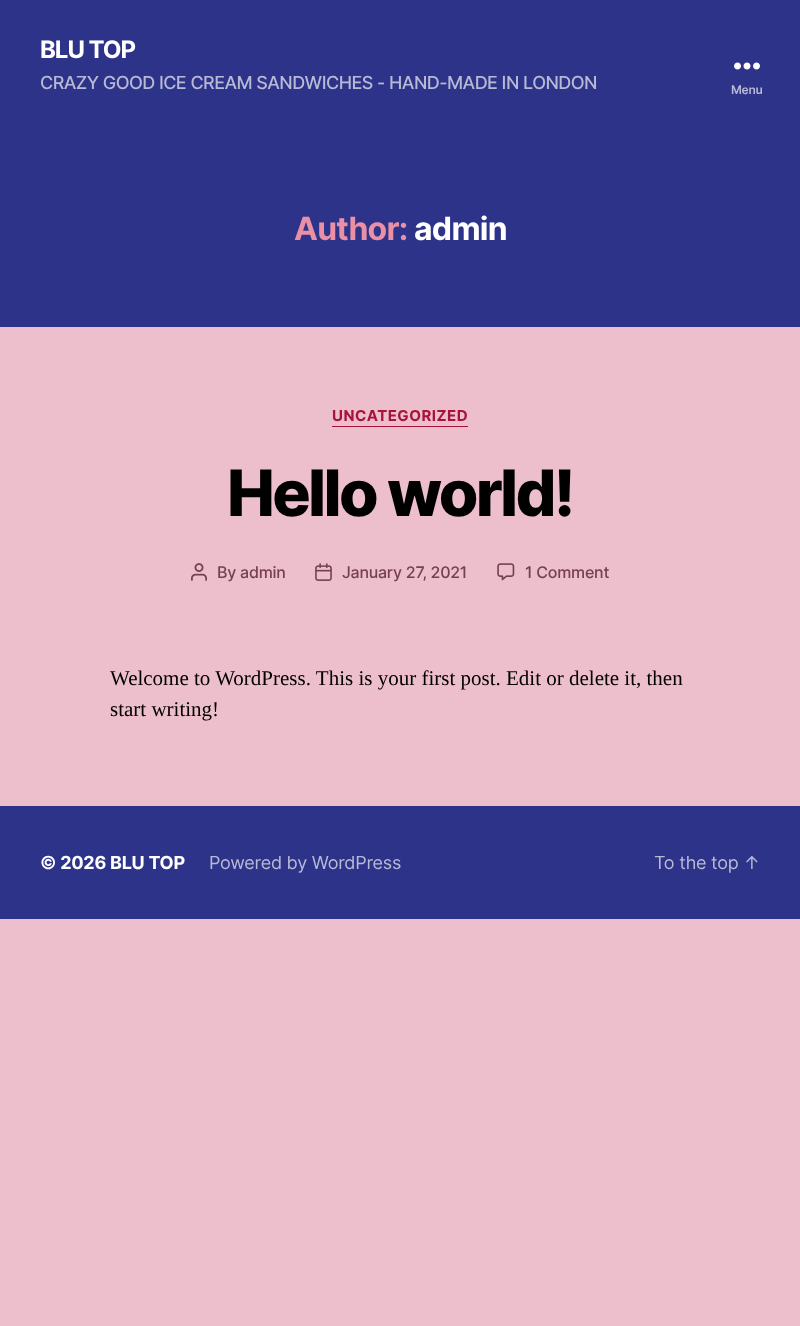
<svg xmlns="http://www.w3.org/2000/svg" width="800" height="1326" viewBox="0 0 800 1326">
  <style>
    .t1 { font: bold 24px Inter; letter-spacing: -1px; fill: #fff; }
    .t2 { font: 500 18px Inter; letter-spacing: -0.55px; fill: #b8bad5; }
    .t3 { font: 600 12px Inter; letter-spacing: -0.25px; fill: #b8bad5; }
    .t4 { font: bold 32px Inter; letter-spacing: -0.75px; fill: #e990a7; }
    .t5 { font: bold 32px Inter; letter-spacing: -0.75px; fill: #fff; }
    .t6 { font: bold 15px Inter; letter-spacing: 0.5px; fill: #a8133b; }
    .t7 { font: 800 64px Inter; letter-spacing: -2.7px; fill: #000; }
    .t8 { font: 500 16px Inter; letter-spacing: -0.25px; fill: #754151; }
    .t9 { font: 21px Liberation Serif; fill: #000; }
    .t10 { font: bold 18px Inter; letter-spacing: -0.25px; fill: #fff; }
    .t11 { font: 18px Inter; letter-spacing: -0.25px; fill: #b8bad5; }
  </style>
  <rect width="100%" height="100%" fill="#edbecb"/>
  <rect x="0" y="0" width="800" height="327" fill="#2d3389"/>
  <text x="40" y="58" class="t1">BLU TOP</text>
  <text x="40" y="89" class="t2">CRAZY GOOD ICE CREAM SANDWICHES - HAND-MADE IN LONDON</text>
  <image x="734" y="62" width="26" height="8" href="images/1.png"/>
  <text x="731" y="94" class="t3">Menu</text>
  <text x="294" y="240" class="t4">Author:</text>
  <text x="414" y="240" class="t5">admin</text>
  <rect x="332" y="426" width="136" height="1" fill="#a8133b"/>
  <text x="332" y="421" class="t6">UNCATEGORIZED</text>
  <text x="227" y="516" class="t7">Hello world!</text>
  <image x="191" y="563" width="16" height="18" href="images/2.png"/>
  <text x="217" y="578" class="t8">By admin</text>
  <image x="315" y="563" width="17" height="18" href="images/3.png"/>
  <text x="342" y="578" class="t8">January 27, 2021</text>
  <image x="497" y="563" width="18" height="18" href="images/4.png"/>
  <text x="525" y="578" class="t8">1 Comment</text>
  <text x="110" y="685" class="t9">Welcome to WordPress. This is your first post. Edit or delete it, then</text>
  <text x="110" y="716" class="t9">start writing!</text>
  <rect x="0" y="806" width="800" height="113" fill="#2d3389"/>
  <text x="40" y="869" class="t10">© 2026 BLU TOP</text>
  <text x="209" y="869" class="t11">Powered by WordPress</text>
  <text x="654" y="869" class="t11">To the top ↑</text>
</svg>
